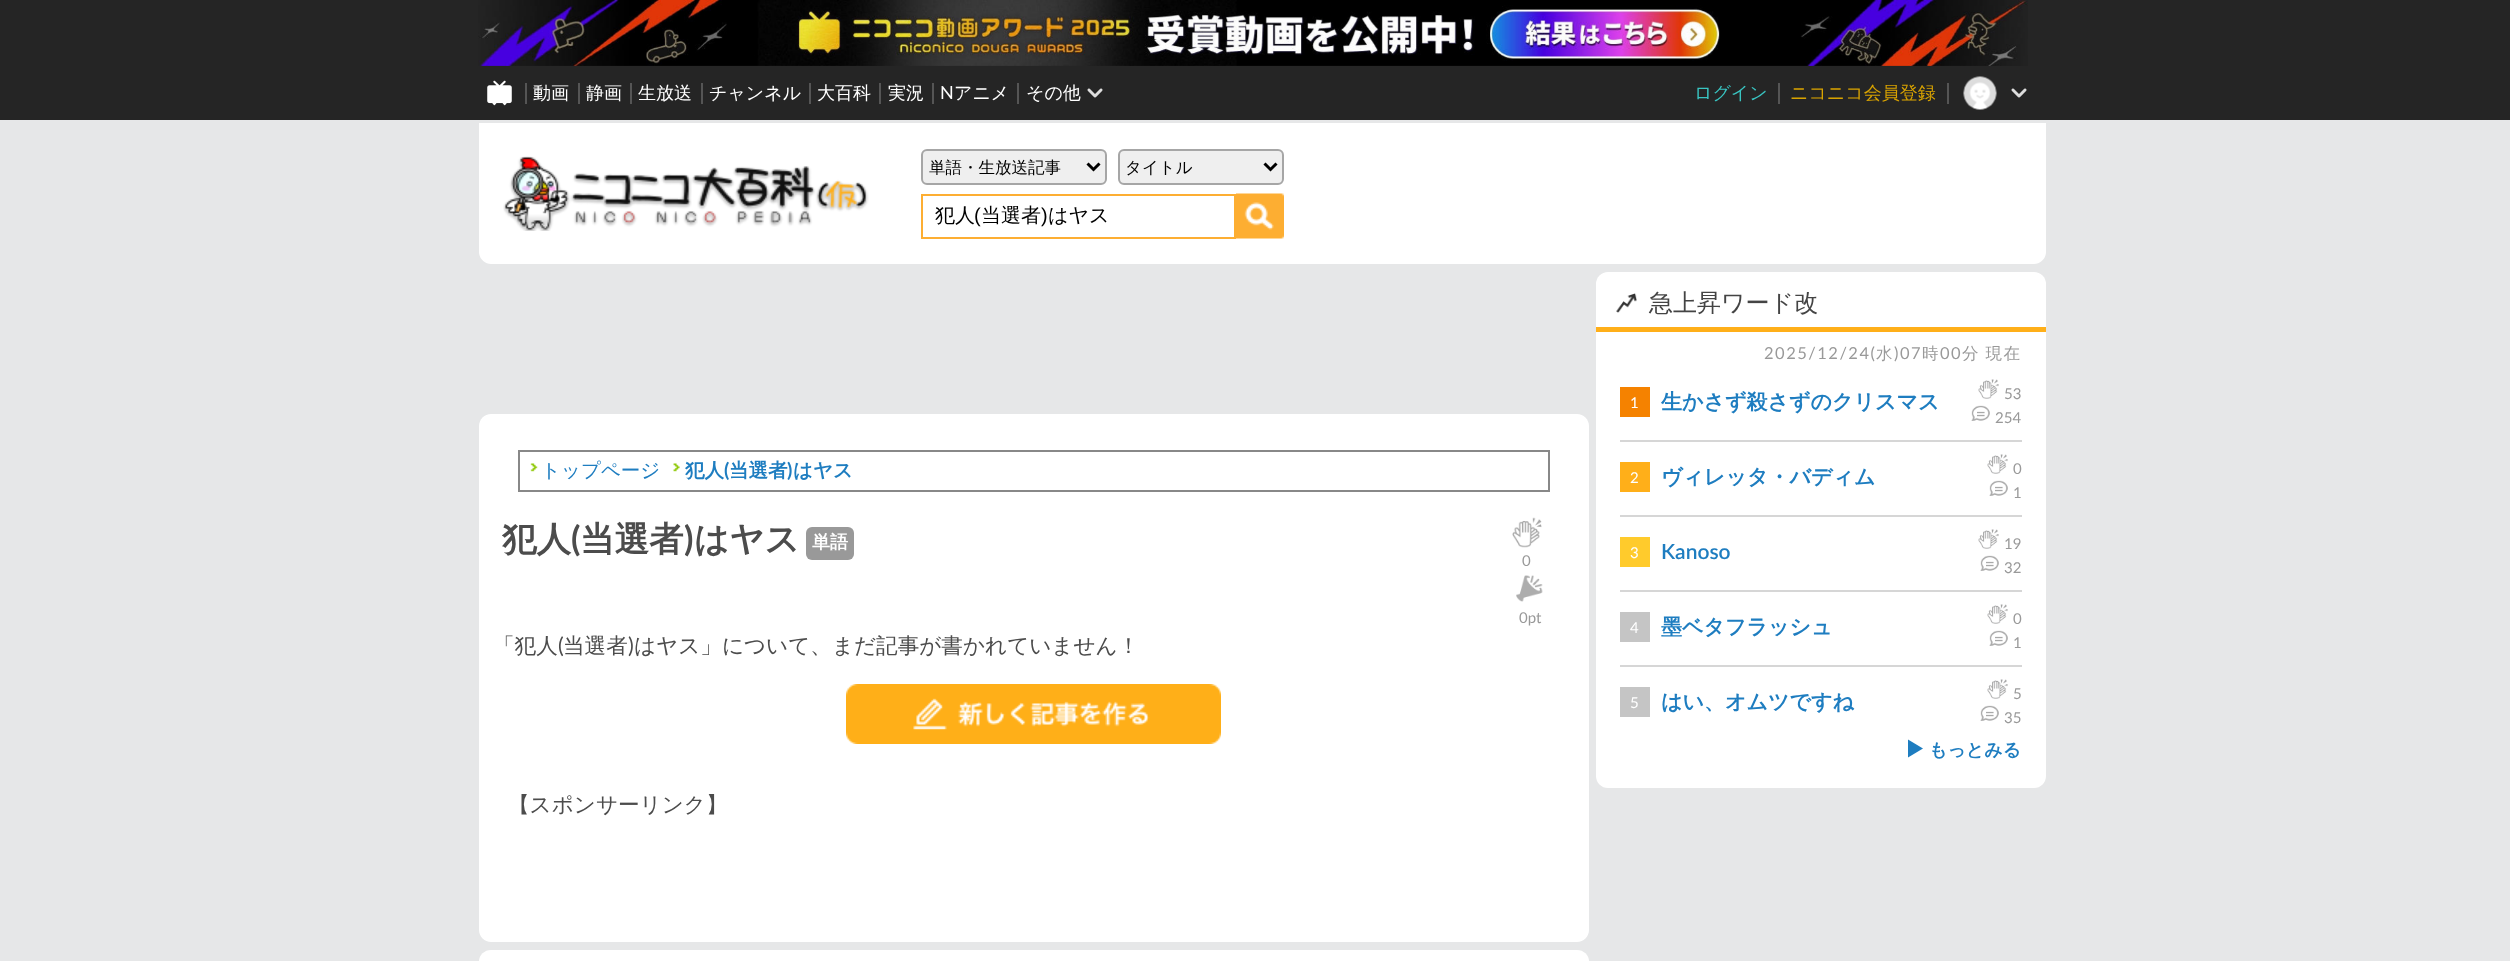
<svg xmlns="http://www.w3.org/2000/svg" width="2510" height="961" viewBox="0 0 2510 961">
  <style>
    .t1 { font: 500 18px WenQuanYi Zen Hei; fill: #fff; }
    .t2 { font: 18px Lato; fill: #fff; }
    .t3 { font: 500 18px WenQuanYi Zen Hei; fill: #39c4c1; }
    .t4 { font: 500 18px WenQuanYi Zen Hei; fill: #d9a300; }
    .t5 { font: 500 16.5px WenQuanYi Zen Hei; fill: #000; }
    .t6 { font: 500 20px WenQuanYi Zen Hei; fill: #000; }
    .t7 { font: 20px Liberation Sans; fill: #000; }
    .t8 { font: 500 19.5px WenQuanYi Zen Hei; fill: #1e7dc0; }
    .t9 { font: bold 19.5px WenQuanYi Zen Hei; fill: #1e7dc0; }
    .t10 { font: bold 19.5px Lato; fill: #1e7dc0; }
    .t11 { font: bold 34.5px WenQuanYi Zen Hei; fill: #4c4c4c; }
    .t12 { font: bold 34.5px Lato; fill: #4c4c4c; }
    .t13 { font: bold 18px WenQuanYi Zen Hei; fill: #fff; }
    .t14 { font: 15px Lato; fill: #999; }
    .t15 { font: 500 21.6px WenQuanYi Zen Hei; fill: #4c4c4c; }
    .t16 { font: 21.6px Lato; fill: #4c4c4c; }
    .t17 { font: 500 24px WenQuanYi Zen Hei; fill: #444; }
    .t18 { font: 16.5px Lato; letter-spacing: 1.5px; fill: #999; }
    .t19 { font: 500 16.5px WenQuanYi Zen Hei; letter-spacing: 1.5px; fill: #999; }
    .t20 { font: 15px Lato; fill: #fff; }
    .t21 { font: bold 21px WenQuanYi Zen Hei; fill: #1e7dc0; }
    .t22 { font: 600 21px Lato; fill: #1e7dc0; }
    .t23 { font: bold 18px WenQuanYi Zen Hei; fill: #1e7dc0; }
  </style>
  <rect width="100%" height="100%" fill="#e6e7e8"/>
  <rect x="0" y="0" width="2510" height="120" fill="#252525"/>
  <image x="478" y="0" width="1550" height="66" href="images/1.png"/>
  <image x="487" y="80" width="25" height="26" href="images/2.png"/>
  <rect x="525" y="83" width="2" height="21" fill="#555"/>
  <text x="533" y="99" class="t1">動画</text>
  <rect x="578" y="83" width="2" height="21" fill="#555"/>
  <text x="586" y="99" class="t1">静画</text>
  <rect x="630" y="83" width="2" height="21" fill="#555"/>
  <text x="638" y="99" class="t1">生放送</text>
  <rect x="701" y="83" width="2" height="21" fill="#555"/>
  <text x="709" y="99" class="t1">チャンネル</text>
  <rect x="809" y="83" width="2" height="21" fill="#555"/>
  <text x="817" y="99" class="t1">大百科</text>
  <rect x="879" y="83" width="2" height="21" fill="#555"/>
  <text x="888" y="99" class="t1">実況</text>
  <rect x="932" y="83" width="2" height="21" fill="#555"/>
  <text x="940" y="99" class="t2">N</text>
  <text x="954" y="99" class="t1">アニメ</text>
  <rect x="1017" y="83" width="2" height="21" fill="#555"/>
  <text x="1026" y="99" class="t1">その他</text>
  <image x="1087" y="88" width="16" height="10" href="images/3.png"/>
  <text x="1694" y="99" class="t3">ログイン</text>
  <rect x="1778" y="83" width="2" height="21" fill="#555"/>
  <text x="1790" y="99" class="t4">ニコニコ会員登録</text>
  <rect x="1947" y="83" width="2" height="21" fill="#555"/>
  <image x="1963" y="76" width="34" height="34" href="images/4.png"/>
  <image x="2011" y="88" width="16" height="10" href="images/3.png"/>
  <path d="M479 123H2046V252C2046 258.5 2040.5 264 2034 264H491C484.5 264 479 258.5 479 252Z" fill="#fff"/>
  <image x="503" y="156" width="366" height="75" href="images/5.png"/>
  <rect x="922" y="150" width="184" height="34" rx="5" fill="#efefef" stroke="#a6a6a6" stroke-width="2"/>
  <path d="M1087.5 163.5L1093.5 169.5L1099.5 163.5" fill="none" stroke="#000" stroke-width="3"/>
  <text x="929" y="173" class="t5">単語・生放送記事</text>
  <rect x="1119" y="150" width="164" height="34" rx="5" fill="#efefef" stroke="#a6a6a6" stroke-width="2"/>
  <path d="M1264.5 163.5L1270.5 169.5L1276.5 163.5" fill="none" stroke="#000" stroke-width="3"/>
  <text x="1125" y="173" class="t5">タイトル</text>
  <rect x="922" y="195" width="313" height="43" fill="none" stroke="#fdae32" stroke-width="2"/>
  <text x="935" y="222" class="t6">犯人</text>
  <text x="974" y="222" class="t7">(</text>
  <text x="981" y="222" class="t6">当選者</text>
  <text x="1041" y="222" class="t7">)</text>
  <text x="1048" y="222" class="t6">はヤス</text>
  <image x="1236" y="193" width="48" height="46" href="images/6.png"/>
  <path d="M491 414H1577C1583.5 414 1589 419.5 1589 426V632H479V426C479 419.5 484.5 414 491 414Z" fill="#fff"/>
  <rect x="519" y="451" width="1030" height="40" fill="none" stroke="#888" stroke-width="2"/>
  <image x="530" y="463" width="8" height="9" href="images/7.png"/>
  <text x="541" y="477" class="t8">トップページ</text>
  <image x="673" y="463" width="7" height="9" href="images/8.png"/>
  <text x="685" y="477" class="t9">犯人</text>
  <text x="724" y="477" class="t10">(</text>
  <text x="729" y="477" class="t9">当選者</text>
  <text x="787" y="477" class="t10">)</text>
  <text x="793" y="477" class="t9">はヤス</text>
  <text x="502" y="551" class="t11">犯人</text>
  <text x="571" y="551" class="t12">(</text>
  <text x="580" y="551" class="t11">当選者</text>
  <text x="684" y="551" class="t12">)</text>
  <text x="694" y="551" class="t11">はヤス</text>
  <rect x="806" y="527" width="48" height="33" rx="6" fill="#999"/>
  <text x="812" y="548" class="t13">単語</text>
  <image x="1512" y="517" width="30" height="31" href="images/9.png"/>
  <text x="1522" y="566" class="t14">0</text>
  <image x="1516" y="575" width="27" height="27" href="images/10.png"/>
  <text x="1519" y="623" class="t14">0pt</text>
  <path d="M479 632H1589V930C1589 936.5 1583.5 942 1577 942H491C484.5 942 479 936.5 479 930Z" fill="#fff"/>
  <text x="493" y="653" class="t15">「犯人</text>
  <text x="558" y="653" class="t16">(</text>
  <text x="563" y="653" class="t15">当選者</text>
  <text x="628" y="653" class="t16">)</text>
  <text x="634" y="653" class="t15">はヤス」について、まだ記事が書かれていません！</text>
  <image x="846" y="684" width="375" height="60" href="images/11.png"/>
  <text x="508" y="812" class="t15">【スポンサーリンク】</text>
  <rect x="479" y="950" width="1110" height="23" rx="12" fill="#fff"/>
  <rect x="1596" y="272" width="450" height="516" rx="12" fill="#fff"/>
  <rect x="1596" y="327" width="450" height="5" fill="#ffaf19"/>
  <image x="1616" y="293" width="21" height="20" href="images/12.png"/>
  <text x="1649" y="311" class="t17">急上昇ワード改</text>
  <text x="1764" y="359" class="t18">2025/12/24(</text>
  <text x="1876" y="359" class="t19">水</text>
  <text x="1894" y="359" class="t18">)07</text>
  <text x="1922" y="359" class="t19">時</text>
  <text x="1940" y="359" class="t18">00</text>
  <text x="1962" y="359" word-spacing="-1" class="t19">分 現在</text>
  <rect x="1620" y="440" width="402" height="2" fill="#d6d6d6"/>
  <rect x="1620" y="387" width="30" height="30" fill="#f58200"/>
  <text x="1630" y="408" class="t20">1</text>
  <text x="1661" y="409" class="t21">生かさず殺さずのクリスマス</text>
  <image x="1978" y="379" width="21" height="20" href="images/13.png"/>
  <text x="2004" y="399" class="t14">53</text>
  <image x="1971" y="405" width="19" height="16" href="images/14.png"/>
  <text x="1995" y="423" class="t14">254</text>
  <rect x="1620" y="515" width="402" height="2" fill="#d6d6d6"/>
  <rect x="1620" y="462" width="30" height="30" fill="#ffaf19"/>
  <text x="1630" y="483" class="t20">2</text>
  <text x="1661" y="484" class="t21">ヴィレッタ・バディム</text>
  <image x="1987" y="454" width="21" height="20" href="images/13.png"/>
  <text x="2013" y="474" class="t14">0</text>
  <image x="1989" y="480" width="19" height="16" href="images/14.png"/>
  <text x="2013" y="498" class="t14">1</text>
  <rect x="1620" y="590" width="402" height="2" fill="#d6d6d6"/>
  <rect x="1620" y="537" width="30" height="30" fill="#ffcb2c"/>
  <text x="1630" y="558" class="t20">3</text>
  <text x="1661" y="559" class="t22">Kanoso</text>
  <image x="1978" y="529" width="21" height="20" href="images/13.png"/>
  <text x="2004" y="549" class="t14">19</text>
  <image x="1980" y="555" width="19" height="16" href="images/14.png"/>
  <text x="2004" y="573" class="t14">32</text>
  <rect x="1620" y="665" width="402" height="2" fill="#d6d6d6"/>
  <rect x="1620" y="612" width="30" height="30" fill="#c5c5c5"/>
  <text x="1630" y="633" class="t20">4</text>
  <text x="1661" y="634" class="t21">墨ベタフラッシュ</text>
  <image x="1987" y="604" width="21" height="20" href="images/13.png"/>
  <text x="2013" y="624" class="t14">0</text>
  <image x="1989" y="630" width="19" height="16" href="images/14.png"/>
  <text x="2013" y="648" class="t14">1</text>
  <rect x="1620" y="687" width="30" height="30" fill="#c5c5c5"/>
  <text x="1630" y="708" class="t20">5</text>
  <text x="1661" y="709" class="t21">はい、オムツですね</text>
  <image x="1987" y="679" width="21" height="20" href="images/13.png"/>
  <text x="2013" y="699" class="t14">5</text>
  <image x="1980" y="705" width="19" height="16" href="images/14.png"/>
  <text x="2004" y="723" class="t14">35</text>
  <path d="M1908 757.5V739.5L1923 748.5Z" fill="#1e7dc0"/>
  <text x="1929" y="756" class="t23">もっとみる</text>
</svg>
